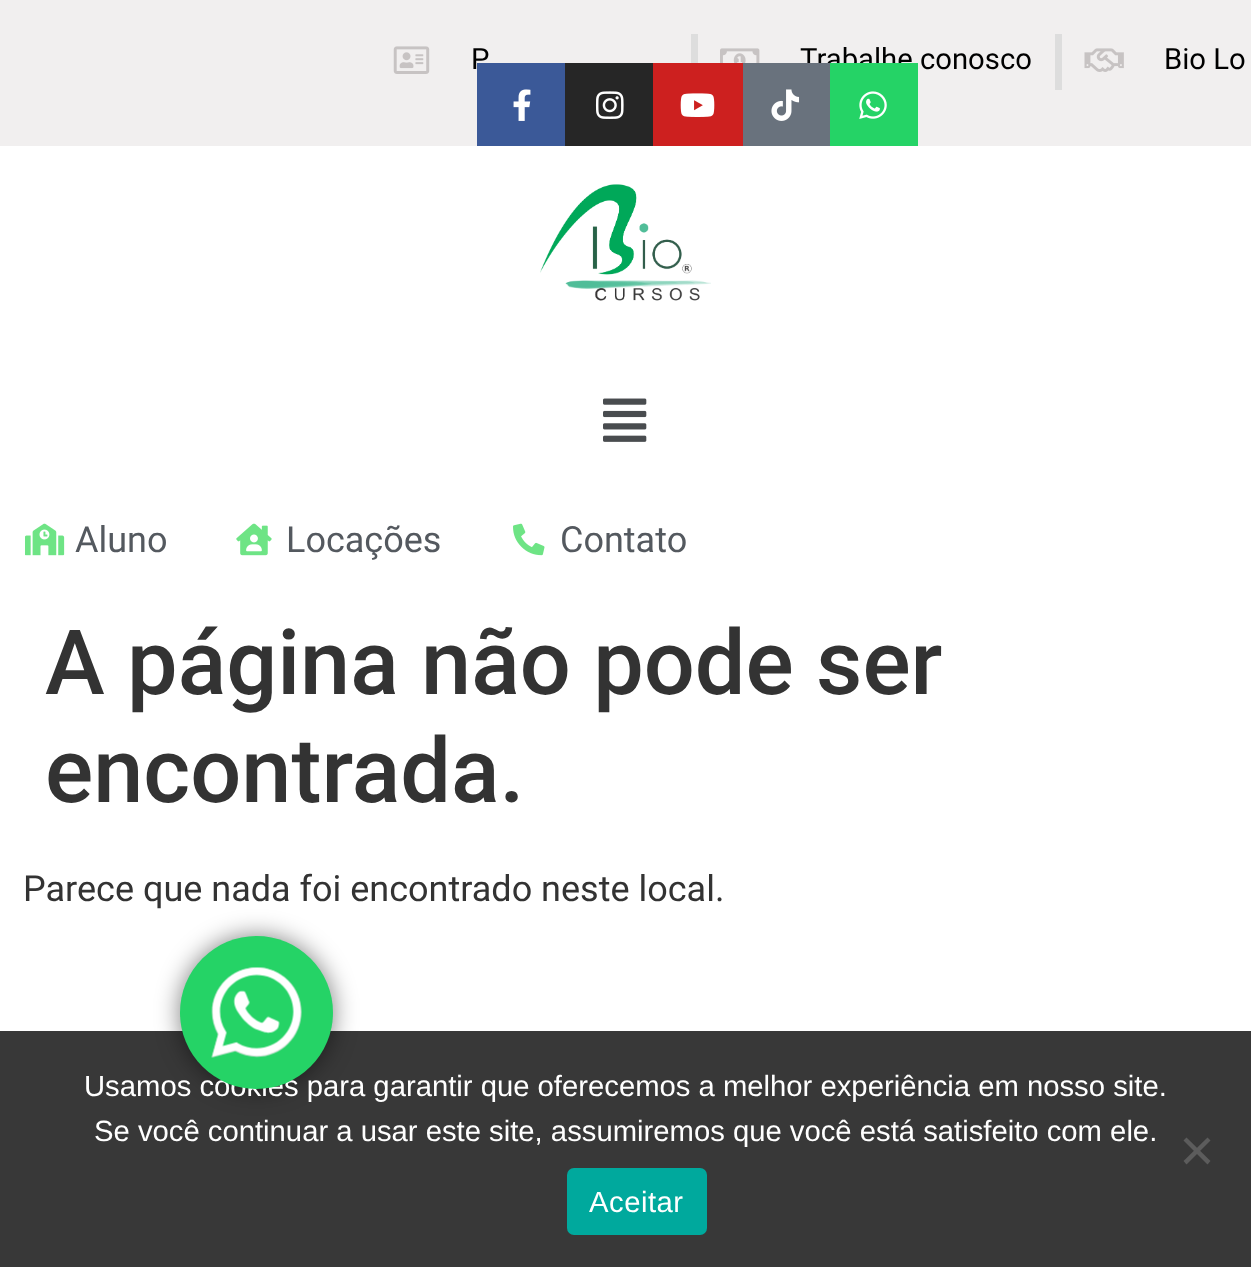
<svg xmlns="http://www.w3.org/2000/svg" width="1251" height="1267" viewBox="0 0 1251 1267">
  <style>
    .t1 { font: 29.25px Roboto; fill: #000; }
    .t2 { font: 36px Roboto; fill: #54595f; }
    .t3 { font: 500 90px Roboto; fill: #333; }
    .t4 { font: 36px Roboto; fill: #333; }
    .t5 { font: 29.25px Liberation Sans; fill: #fff; }
    .t6 { font: 29.25px Liberation Sans; letter-spacing: 0.5px; fill: #fff; }
  </style>
  <rect width="100%" height="100%" fill="#fff"/>
  <rect x="0" y="0" width="1251" height="146" fill="#f1efef"/>
  <image x="393" y="46" width="37" height="28" href="images/1.png"/>
  <text x="471" y="69" class="t1">P</text>
  <rect x="691" y="34" width="7" height="29" fill="#ddd"/>
  <image x="720" y="48" width="40" height="15" href="images/2.png"/>
  <text x="800" y="69" class="t1">Trabalhe conosco</text>
  <rect x="1055" y="34" width="7" height="56" fill="#ddd"/>
  <image x="1084" y="48" width="40" height="24" href="images/3.png"/>
  <text x="1164" y="69" class="t1">Bio Lo</text>
  <rect x="477" y="63" width="88" height="83" fill="#3b5998"/>
  <image x="513" y="89" width="18" height="32" href="images/4.png"/>
  <rect x="565" y="63" width="88" height="83" fill="#262626"/>
  <image x="595" y="91" width="29" height="28" href="images/5.png"/>
  <rect x="653" y="63" width="90" height="83" fill="#cd201f"/>
  <image x="680" y="93" width="35" height="24" href="images/6.png"/>
  <rect x="743" y="63" width="87" height="83" fill="#69727d"/>
  <image x="771" y="89" width="29" height="32" href="images/7.png"/>
  <rect x="830" y="63" width="88" height="83" fill="#25d366"/>
  <image x="859" y="91" width="28" height="28" href="images/8.png"/>
  <image x="540" y="184" width="171" height="117" href="images/9.png"/>
  <image x="603" y="398" width="44" height="44" href="images/10.png"/>
  <image x="25" y="523" width="40" height="33" href="images/11.png"/>
  <text x="75" y="552" class="t2">Aluno</text>
  <image x="236" y="523" width="36" height="33" href="images/12.png"/>
  <text x="286" y="552" class="t2">Locações</text>
  <image x="513" y="523" width="32" height="33" href="images/13.png"/>
  <text x="560" y="552" class="t2">Contato</text>
  <text x="45" y="694" class="t3">A página não pode ser</text>
  <text x="45" y="802" class="t3">encontrada.</text>
  <text x="23" y="901" class="t4">Parece que nada foi encontrado neste local.</text>
  <rect x="0" y="1031" width="1251" height="236" fill="#383838"/>
  <rect x="180" y="936" width="153" height="153" rx="76.5" fill="#00000080" filter="blur(12.5px)"/>
  <text x="84" y="1096" class="t5">Usamos cookies para garantir que oferecemos a melhor experiência em nosso site.</text>
  <circle cx="256.5" cy="1012.5" r="76.5" fill="#25d366"/>
  <image x="211" y="967" width="91" height="91" href="images/14.png"/>
  <text x="94" y="1141" class="t5">Se você continuar a usar este site, assumiremos que você está satisfeito com ele.</text>
  <path d="M1207.5 1137.5L1210.5 1140.5L1186.5 1164.5L1183.5 1161Z" fill="#5c5c5c"/>
  <path d="M1183.5 1140.5L1186.5 1137.5L1210.5 1161L1207.5 1164.5Z" fill="#5c5c5c"/>
  <rect x="567" y="1168" width="140" height="67" rx="7" fill="#00a99d"/>
  <text x="589" y="1212" class="t6">Aceitar</text>
</svg>
